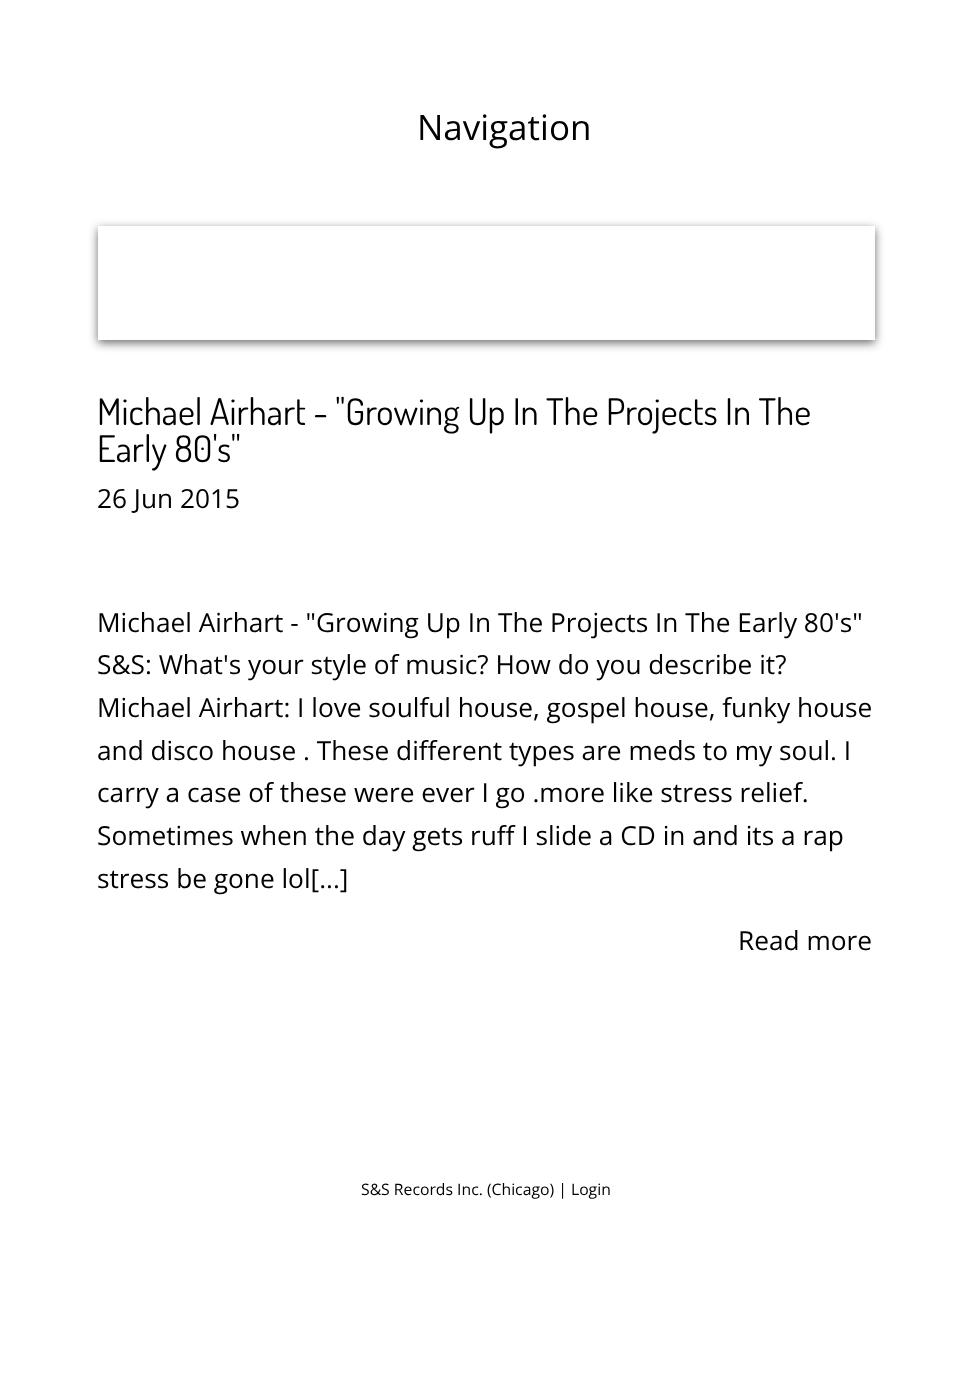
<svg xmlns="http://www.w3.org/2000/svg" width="970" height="1399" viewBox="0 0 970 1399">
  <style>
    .t1 { font: 35px Open Sans; fill: #000; }
    .t2 { font: 36.75px Dosis; fill: #000; }
    .t3 { font: 26.25px Open Sans; fill: #000; }
    .t4 { font: 15.75px Open Sans; fill: #000; }
  </style>
  <defs>
    <clipPath id="clip1"><path d="M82 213H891V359H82ZM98 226H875V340H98Z" clip-rule="evenodd"/></clipPath>
  </defs>
  <rect width="100%" height="100%" fill="#fff"/>
  <text x="417" y="140" class="t1">Navigation</text>
  <g clip-path="url(#clip1)">
    <rect x="98" y="229" width="777" height="114" fill="#0a0a0a99" filter="blur(5px)"/>
  </g>
  <text x="97" y="425" class="t2">Michael Airhart - "Growing Up In The Projects In The</text>
  <text x="97" y="462" class="t2">Early 80's"</text>
  <text x="97" y="508" class="t3">26 Jun 2015</text>
  <text x="97" y="632" class="t3">Michael Airhart - "Growing Up In The Projects In The Early 80's"</text>
  <text x="97" y="674" class="t3">S&amp;S: What's your style of music? How do you describe it?</text>
  <text x="97" y="717" class="t3">Michael Airhart: I love soulful house, gospel house, funky house</text>
  <text x="97" y="760" class="t3">and disco house . These different types are meds to my soul. I</text>
  <text x="97" y="802" class="t3">carry a case of these were ever I go .more like stress relief.</text>
  <text x="97" y="845" class="t3">Sometimes when the day gets ruff I slide a CD in and its a rap</text>
  <text x="97" y="888" class="t3">stress be gone lol[...]</text>
  <text x="738" y="950" class="t3">Read more</text>
  <text x="361" y="1195" class="t4">S&amp;S Records Inc. (Chicago) | Login</text>
</svg>
